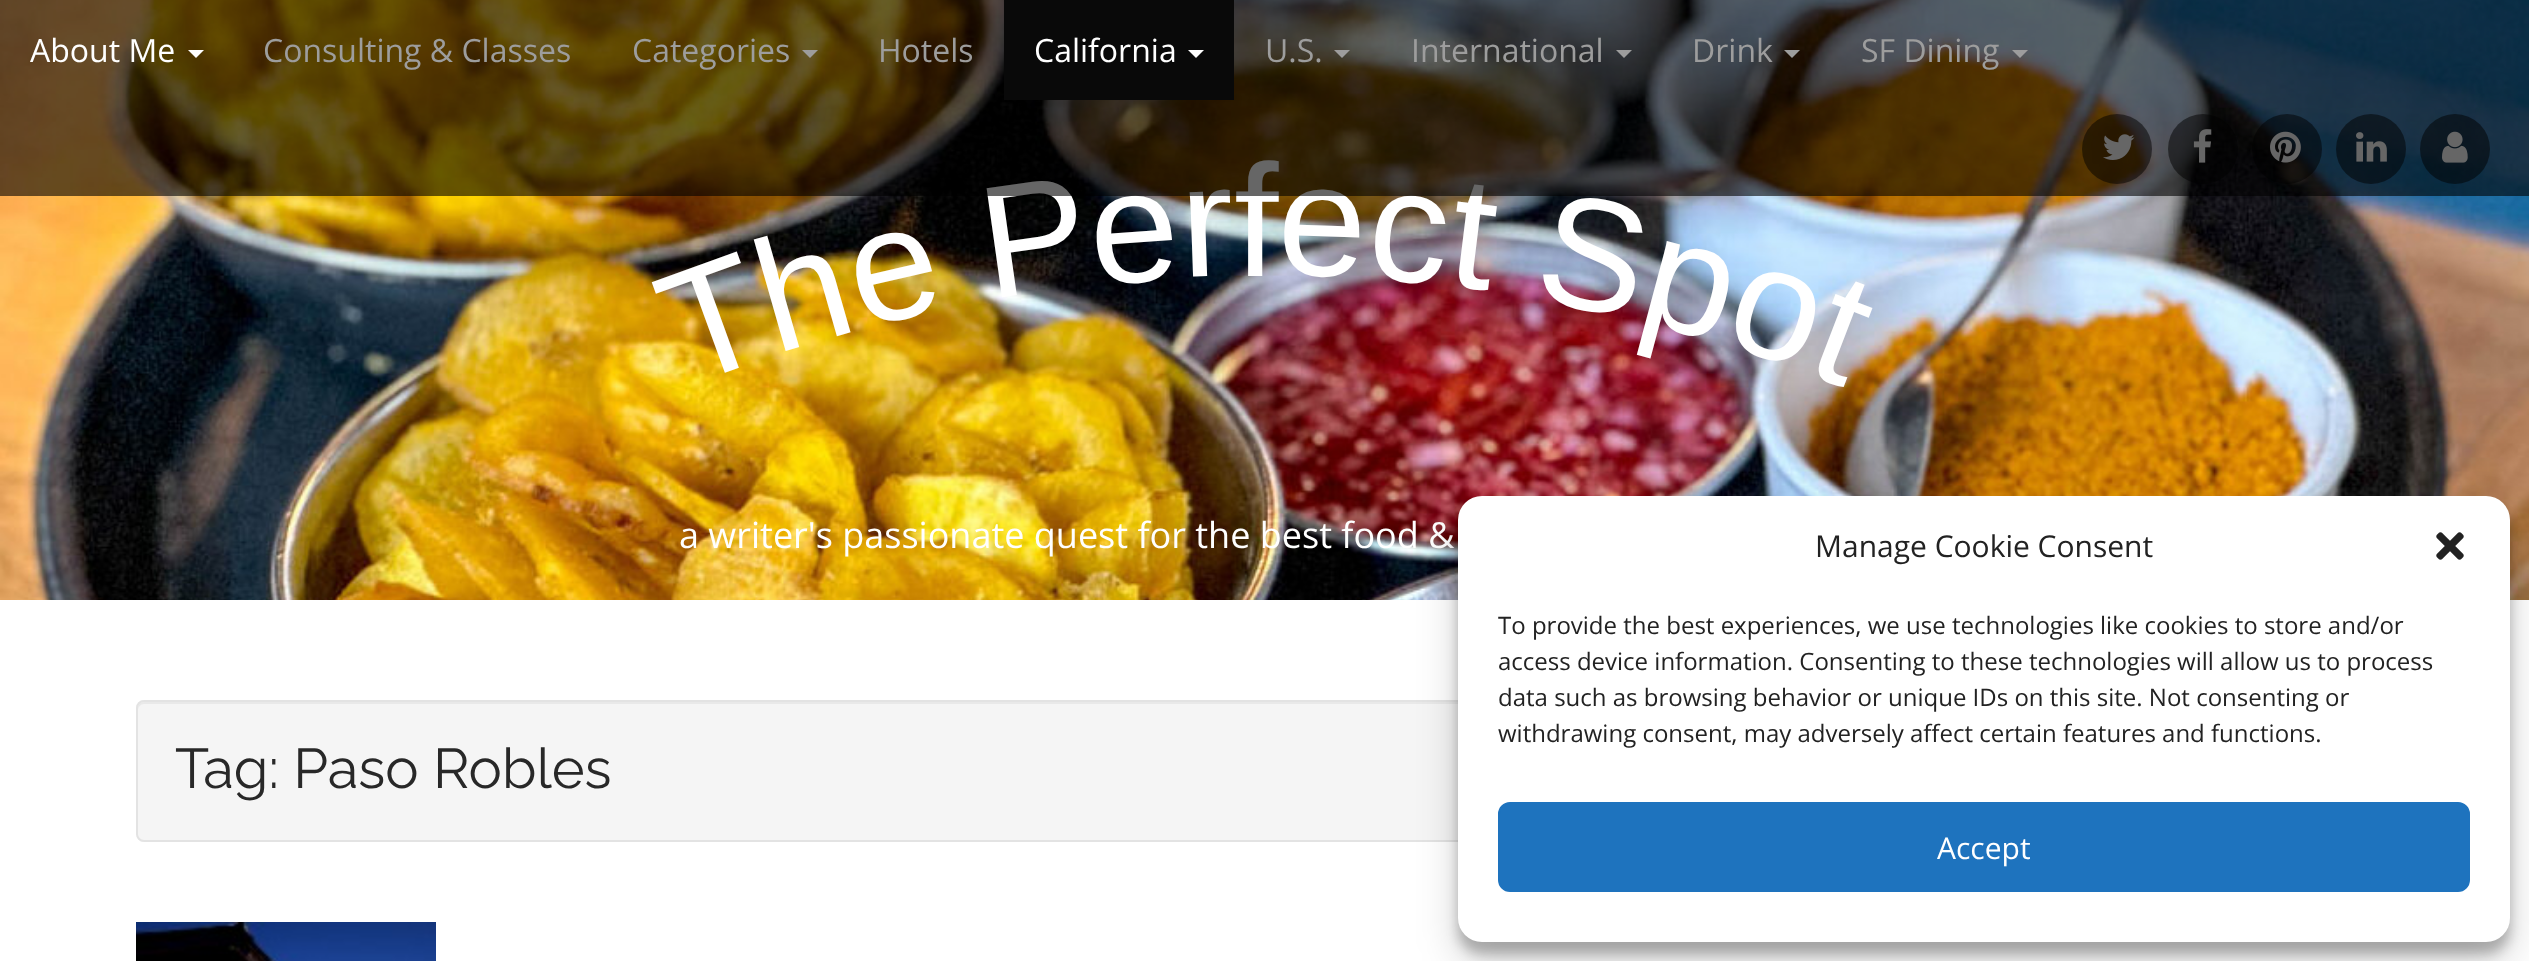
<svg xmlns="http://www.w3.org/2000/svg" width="2529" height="961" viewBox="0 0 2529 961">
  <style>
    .t1 { font: 160px Liberation Sans; fill: #fff; }
    .t2 { font: 32px Open Sans; fill: #fff; }
    .t3 { font: 32px Open Sans; fill: #9d9d9d; }
    .t4 { font: 36px Open Sans; fill: #fff; }
    .t5 { font: 100 56px Raleway; fill: #282828; }
    .t6 { font: 30px Open Sans; fill: #222; }
    .t7 { font: 24px Open Sans; fill: #222; }
    .t8 { font: 30px Open Sans; fill: #fff; }
  </style>
  <rect width="100%" height="100%" fill="#fff"/>
  <image x="0" y="0" width="2529" height="600" href="images/6.png"/>
  <text x="989" y="299" transform="rotate(-8 989 299)" class="t1">P</text>
  <text x="1093" y="285" transform="rotate(-4 1093 285)" class="t1">e</text>
  <text x="1182" y="277" transform="rotate(-2 1182 277)" class="t1">r</text>
  <text x="1234" y="276" class="t1">f</text>
  <text x="1276" y="274" transform="rotate(2 1276 274)" class="t1">e</text>
  <text x="1365" y="278" transform="rotate(5 1365 278)" class="t1">c</text>
  <text x="1445" y="285" transform="rotate(7 1445 285)" class="t1">t</text>
  <rect x="0" y="0" width="2529" height="196" fill="#00000099"/>
  <text x="30" y="62" class="t2">About Me</text>
  <path d="M188 50H204L196 58Z" fill="#fff"/>
  <text x="263" y="62" class="t3">Consulting &amp; Classes</text>
  <text x="632" y="62" class="t3">Categories</text>
  <path d="M802 50H818L810 58Z" fill="#9d9d9d"/>
  <text x="878" y="62" class="t3">Hotels</text>
  <rect x="1004" y="0" width="230" height="100" fill="#090909"/>
  <text x="1034" y="62" class="t2">California</text>
  <path d="M1188 50H1204L1196 58Z" fill="#fff"/>
  <text x="1265" y="62" class="t3">U.S.</text>
  <path d="M1334 50H1350L1342 58Z" fill="#9d9d9d"/>
  <text x="1411" y="62" class="t3">International</text>
  <path d="M1616 50H1632L1624 58Z" fill="#9d9d9d"/>
  <text x="1692" y="62" class="t3">Drink</text>
  <path d="M1784 50H1800L1792 58Z" fill="#9d9d9d"/>
  <text x="1861" y="62" class="t3">SF Dining</text>
  <path d="M2012 50H2028L2020 58Z" fill="#9d9d9d"/>
  <circle cx="2117" cy="149" r="35" fill="#00000080"/>
  <image x="2103" y="134" width="32" height="26" href="images/1.png"/>
  <circle cx="2203" cy="149" r="35" fill="#00000080"/>
  <image x="2193" y="129" width="19" height="34" href="images/2.png"/>
  <circle cx="2287" cy="149" r="35" fill="#00000080"/>
  <image x="2270" y="131" width="31" height="32" href="images/3.png"/>
  <circle cx="2371" cy="149" r="35" fill="#00000080"/>
  <image x="2356" y="132" width="31" height="30" href="images/4.png"/>
  <circle cx="2455" cy="149" r="35" fill="#00000080"/>
  <image x="2442" y="131" width="26" height="32" href="images/5.png"/>
  <text x="686" y="387" transform="rotate(-20 686 387)" class="t1">T</text>
  <text x="775" y="354" transform="rotate(-16 775 354)" class="t1">h</text>
  <text x="861" y="328" transform="rotate(-13 861 328)" class="t1">e</text>
  <text x="1531" y="299" transform="rotate(11 1531 299)" class="t1">S</text>
  <text x="1635" y="320" transform="rotate(15 1635 320)" class="t1">p</text>
  <text x="1720" y="343" transform="rotate(18 1720 343)" class="t1">o</text>
  <text x="1803" y="372" transform="rotate(21 1803 372)" class="t1">t</text>
  <text x="679" y="548" class="t4">a writer's passionate quest for the best food &amp;</text>
  <rect x="136" y="700" width="1480" height="142" rx="8" fill="#f5f5f5"/>
  <path d="M144 704H1608C1611 704 1614 707 1614 710C1614 706 1613 702 1608 702H144C139 702 138 706 138 710C138 707 141 704 144 704Z" fill="#e9e9e9"/>
  <rect x="137" y="701" width="1478" height="140" rx="7" fill="none" stroke="#e3e3e3" stroke-width="2"/>
  <text x="175" y="788" class="t5">Tag: Paso Robles</text>
  <image x="136" y="922" width="300" height="39" href="images/7.png"/>
  <rect x="1458" y="508" width="1052" height="446" rx="24" fill="#0000003b" filter="blur(6px)"/>
  <rect x="1458" y="516" width="1052" height="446" rx="24" fill="#00000030" filter="blur(20px)"/>
  <rect x="1458" y="496" width="1052" height="446" rx="24" fill="#fff"/>
  <text x="1815" y="557" class="t6">Manage Cookie Consent</text>
  <image x="2436" y="532" width="28" height="28" href="images/8.png"/>
  <text x="1498" y="634" class="t7">To provide the best experiences, we use technologies like cookies to store and/or</text>
  <text x="1498" y="670" class="t7">access device information. Consenting to these technologies will allow us to process</text>
  <text x="1498" y="706" class="t7">data such as browsing behavior or unique IDs on this site. Not consenting or</text>
  <text x="1498" y="742" class="t7">withdrawing consent, may adversely affect certain features and functions.</text>
  <rect x="1499" y="803" width="970" height="88" rx="11" fill="#1e73be" stroke="#1e73be" stroke-width="2"/>
  <text x="1937" y="859" class="t8">Accept</text>
</svg>
